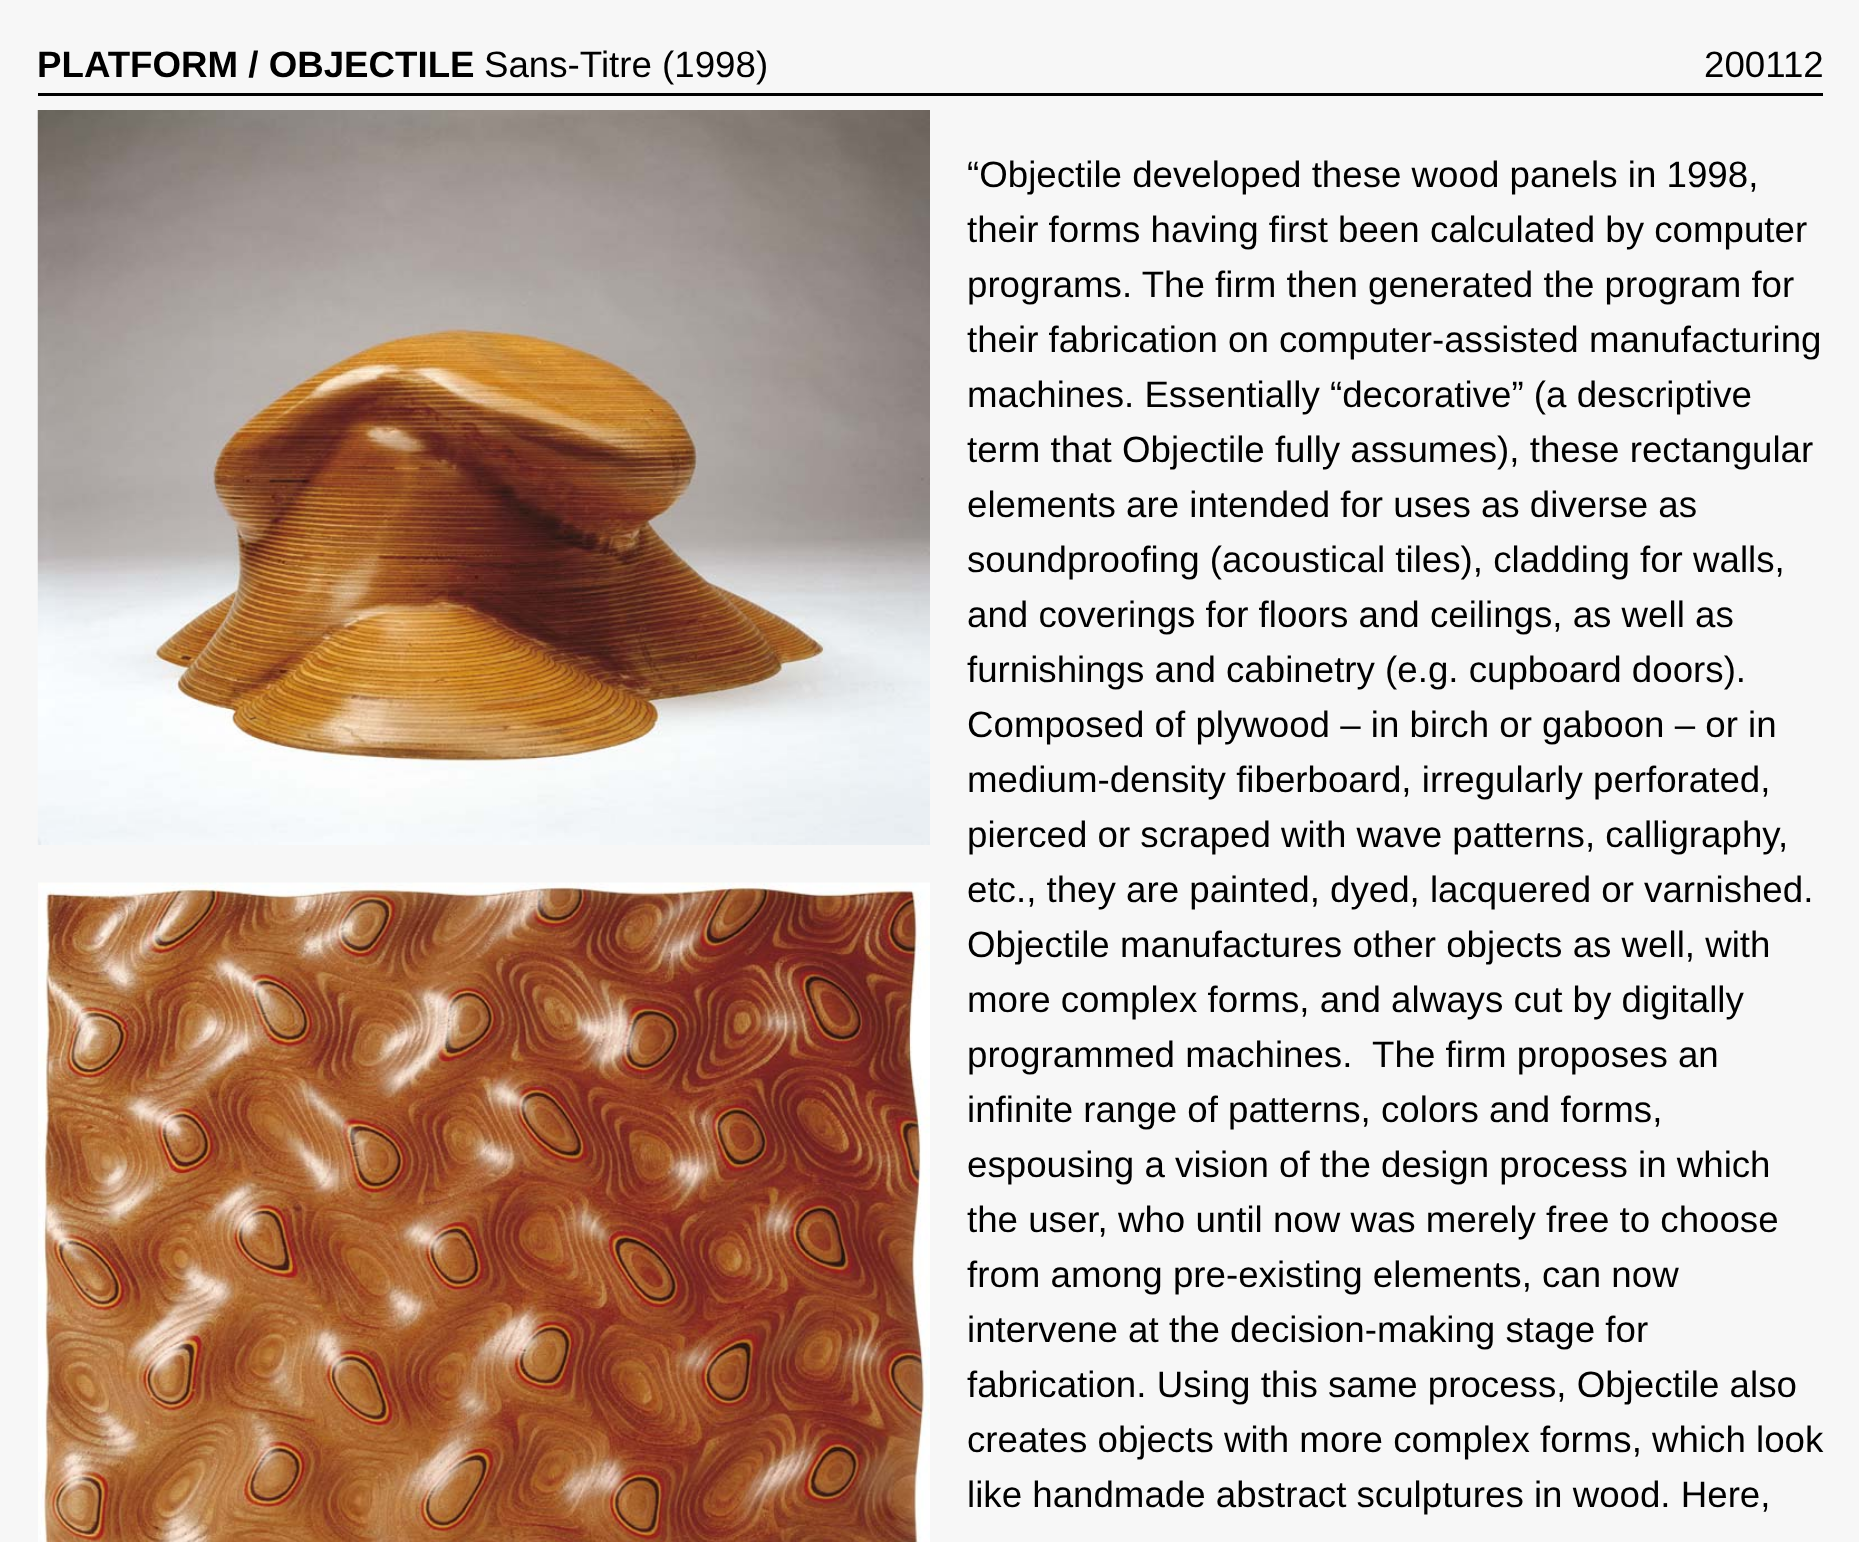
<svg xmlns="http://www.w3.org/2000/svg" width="1859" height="1542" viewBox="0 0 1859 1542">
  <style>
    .t1 { font: bold 36.7px Liberation Sans; fill: #000; }
    .t2 { font: 36.7px Liberation Sans; fill: #000; }
  </style>
  <rect width="100%" height="100%" fill="#f7f7f7"/>
  <rect x="38" y="93" width="1785" height="3" fill="#000"/>
  <text x="37" y="77" class="t1">PLATFORM / OBJECTILE</text>
  <text x="484" y="77" class="t2">Sans-Titre (1998)</text>
  <text x="1704" y="77" class="t2">200112</text>
  <image x="37" y="110" width="893" height="735" href="images/1.png"/>
  <image x="38" y="882" width="892" height="660" href="images/2.png"/>
  <text x="967" y="187" class="t2">“Objectile developed these wood panels in 1998,</text>
  <text x="967" y="242" class="t2">their forms having first been calculated by computer</text>
  <text x="967" y="297" class="t2">programs. The firm then generated the program for</text>
  <text x="967" y="352" class="t2">their fabrication on computer-assisted manufacturing</text>
  <text x="967" y="407" class="t2">machines. Essentially “decorative” (a descriptive</text>
  <text x="967" y="462" class="t2">term that Objectile fully assumes), these rectangular</text>
  <text x="967" y="517" class="t2">elements are intended for uses as diverse as</text>
  <text x="967" y="572" class="t2">soundproofing (acoustical tiles), cladding for walls,</text>
  <text x="967" y="627" class="t2">and coverings for floors and ceilings, as well as</text>
  <text x="967" y="682" class="t2">furnishings and cabinetry (e.g. cupboard doors).</text>
  <text x="967" y="737" class="t2">Composed of plywood – in birch or gaboon – or in</text>
  <text x="967" y="792" class="t2">medium-density fiberboard, irregularly perforated,</text>
  <text x="967" y="847" class="t2">pierced or scraped with wave patterns, calligraphy,</text>
  <text x="967" y="902" class="t2">etc., they are painted, dyed, lacquered or varnished.</text>
  <text x="967" y="957" class="t2">Objectile manufactures other objects as well, with</text>
  <text x="967" y="1012" class="t2">more complex forms, and always cut by digitally</text>
  <text x="967" y="1067" class="t2" xml:space="preserve">programmed machines.  The firm proposes an</text>
  <text x="967" y="1122" class="t2">infinite range of patterns, colors and forms,</text>
  <text x="967" y="1177" class="t2">espousing a vision of the design process in which</text>
  <text x="967" y="1232" class="t2">the user, who until now was merely free to choose</text>
  <text x="967" y="1287" class="t2">from among pre-existing elements, can now</text>
  <text x="967" y="1342" class="t2">intervene at the decision-making stage for</text>
  <text x="967" y="1397" class="t2">fabrication. Using this same process, Objectile also</text>
  <text x="967" y="1452" class="t2">creates objects with more complex forms, which look</text>
  <text x="967" y="1507" class="t2">like handmade abstract sculptures in wood. Here,</text>
</svg>
